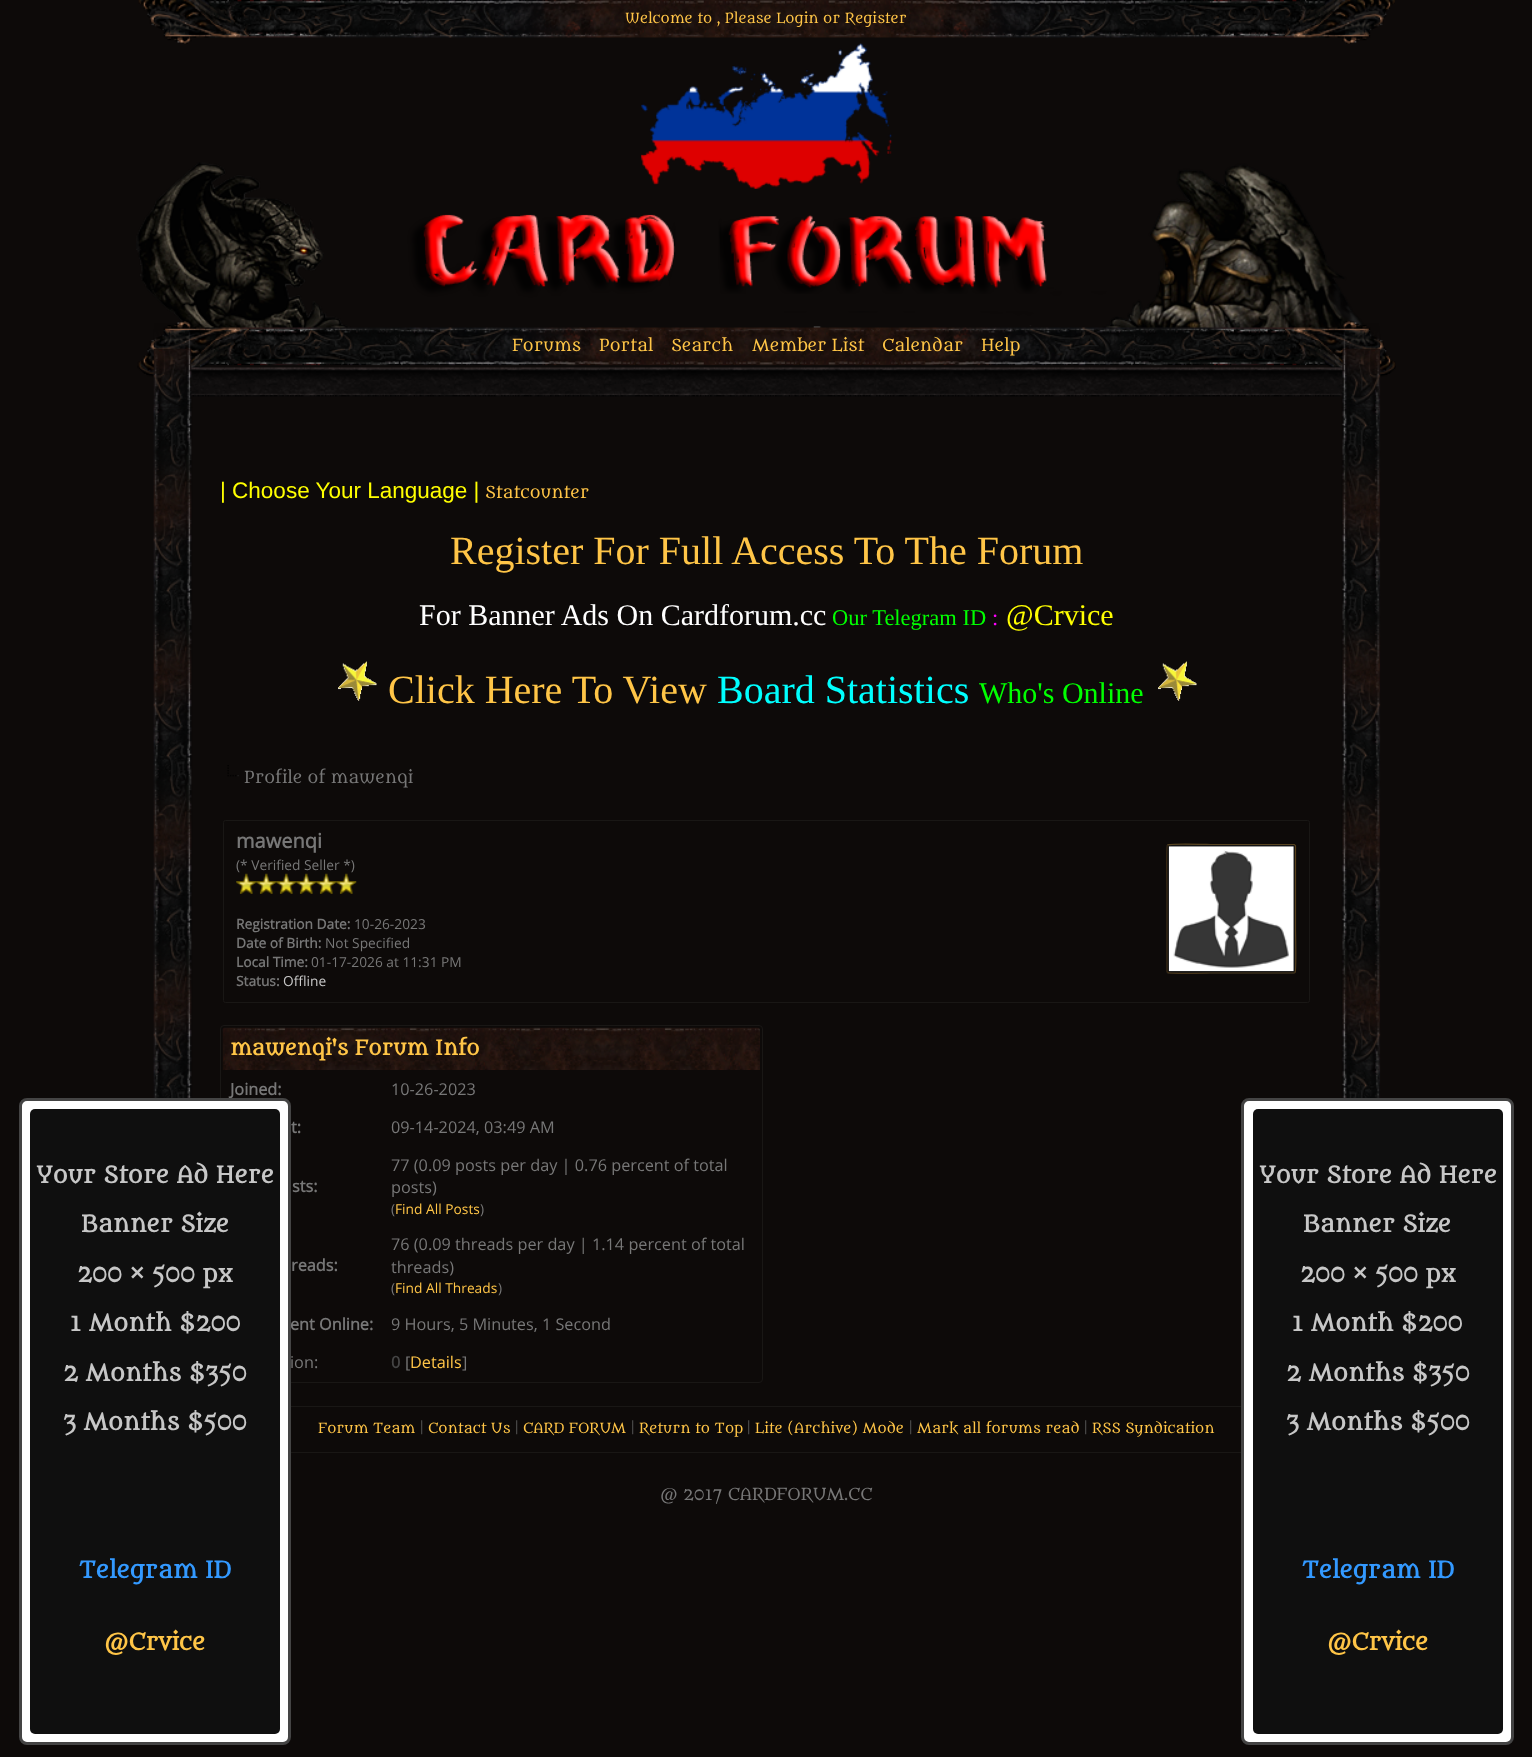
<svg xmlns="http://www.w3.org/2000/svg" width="1532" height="1757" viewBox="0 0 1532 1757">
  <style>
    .t1 { font: 13.75px Metamorphous; fill: #ffc547; }
    .t2 { font: 16.25px Metamorphous; fill: #ffc547; }
    .t3 { font: 22.5px Liberation Sans; fill: #ff0; }
    .t4 { font: 40px Liberation Serif; fill: #ffc547; }
    .t5 { font: 30px Liberation Serif; fill: #fff; }
    .t6 { font: 22.5px Liberation Serif; fill: #0f0; }
    .t7 { font: 22.5px Liberation Serif; fill: #f0f; }
    .t8 { font: 30px Liberation Serif; fill: #ff0; }
    .t9 { font: 40px Liberation Serif; fill: #0ff; }
    .t10 { font: 30px Liberation Serif; fill: #0f0; }
    .t11 { font: 16.25px Metamorphous; fill: #777; }
    .t12 { font: bold 16.25px Open Sans; fill: #777; }
    .t13 { font: 16.25px Open Sans; fill: #777; }
    .t14 { font: bold 22.5px Metamorphous; fill: #c7c7c7; }
    .t15 { font: bold 22.5px Metamorphous; fill: #39f; }
    .t16 { font: bold 22.5px Metamorphous; fill: #ffc547; }
    .t17 { font: bold 20px Open Sans; fill: #777; }
    .t18 { font: 13.75px Open Sans; fill: #777; }
    .t19 { font: bold 13.75px Open Sans; fill: #777; }
    .t20 { font: 13.75px Open Sans; fill: #c7c7c7; }
    .t21 { font: bold 20px Metamorphous; fill: #ffc547; }
    .t22 { font: 13.75px Open Sans; fill: #ffc547; }
    .t23 { font: bold 16.25px Open Sans; fill: #444; }
    .t24 { font: 16.25px Open Sans; fill: #ffc547; }
    .t25 { font: 13.75px Metamorphous; fill: #555; }
  </style>
  <rect width="100%" height="100%" fill="#0d0a09"/>
  <image x="138" y="0" width="1257" height="44" href="images/1.png"/>
  <text x="625" y="23" class="t1">Welcome to , Please Login or Register</text>
  <image x="136" y="162" width="1260" height="216" href="images/4.png"/>
  <image x="641" y="43" width="251" height="146" href="images/2.png"/>
  <image x="153" y="323" width="1228" height="85" href="images/3.png"/>
  <text x="512" y="351" class="t2">Forums</text>
  <text x="599" y="351" class="t2">Portal</text>
  <text x="671" y="351" class="t2">Search</text>
  <text x="752" y="351" class="t2">Member List</text>
  <text x="882" y="351" class="t2">Calendar</text>
  <text x="981" y="351" class="t2">Help</text>
  <image x="153" y="407" width="1228" height="691" href="images/5.png"/>
  <text x="220" y="498" class="t3">| Choose Your Language |</text>
  <text x="485" y="498" class="t2">Statcounter</text>
  <text x="450" y="564" class="t4">Register For Full Access To The Forum</text>
  <text x="419" y="625" class="t5">For Banner Ads On Cardforum.cc</text>
  <text x="832" y="625" class="t6">Our Telegram ID</text>
  <text x="992" y="625" class="t7">:</text>
  <text x="1006" y="625" class="t8">@Crvice</text>
  <image x="338" y="661" width="39" height="40" href="images/6.png"/>
  <text x="388" y="703" class="t4">Click Here To View</text>
  <text x="717" y="703" class="t9">Board Statistics</text>
  <text x="979" y="703" class="t10">Who's Online</text>
  <image x="1158" y="661" width="39" height="40" href="images/6.png"/>
  <image x="227" y="765" width="12" height="12" href="images/7.png"/>
  <text x="244" y="783" class="t11">Profile of mawenqi</text>
  <rect x="220.5" y="1025.5" width="542" height="357" rx="3.5" fill="none" stroke="#191715"/>
  <text x="230" y="1095" class="t12">Joined:</text>
  <text x="290" y="1368" class="t13">ion:</text>
  <rect x="220.5" y="1406.5" width="1092" height="46" fill="none" stroke="#191715"/>
  <rect x="20.5" y="1099.5" width="269" height="644" rx="6.5" fill="#fff" stroke="#444" stroke-width="3"/>
  <rect x="30" y="1109" width="250" height="625" rx="5" fill="#0f0f0f"/>
  <text x="36" y="1183" class="t14">Your Store Ad Here</text>
  <text x="81" y="1232" class="t14">Banner Size</text>
  <text x="77" y="1282" class="t14">200 × 500 px</text>
  <text x="70" y="1331" class="t14">1 Month $200</text>
  <text x="63" y="1381" class="t14">2 Months $350</text>
  <text x="63" y="1430" class="t14">3 Months $500</text>
  <text x="79" y="1578" class="t15">Telegram ID</text>
  <text x="104" y="1650" class="t16">@Crvice</text>
  <rect x="223.5" y="820.5" width="1086" height="182" rx="2" fill="none" stroke="#191715"/>
  <text x="236" y="848" class="t17">mawenqi</text>
  <text x="236" y="870" class="t18">(* Verified Seller *)</text>
  <image x="236" y="873" width="21" height="21" href="images/8.png"/>
  <image x="256" y="873" width="21" height="21" href="images/9.png"/>
  <image x="276" y="873" width="21" height="21" href="images/10.png"/>
  <image x="296" y="873" width="21" height="21" href="images/10.png"/>
  <image x="316" y="873" width="21" height="21" href="images/10.png"/>
  <image x="336" y="873" width="21" height="21" href="images/10.png"/>
  <text x="236" y="929" class="t19">Registration Date:</text>
  <text x="354" y="929" class="t18">10-26-2023</text>
  <text x="236" y="948" class="t19">Date of Birth:</text>
  <text x="325" y="948" class="t18">Not Specified</text>
  <text x="236" y="967" class="t19">Local Time:</text>
  <text x="311" y="967" class="t18">01-17-2026 at 11:31 PM</text>
  <text x="236" y="986" class="t19">Status:</text>
  <text x="283" y="986" class="t20">Offline</text>
  <rect x="1166" y="844" width="130" height="130" rx="2.5" fill="#141414"/>
  <path d="M1167.5 845C1169 843.5 1207.5 844.5 1210.5 844.5H1294L1295 845" fill="none" stroke="#574320" stroke-width="1.2"/>
  <path d="M1295 845L1295.5 846V929.5C1295.5 932.5 1296.5 971 1295 972.5" fill="none" stroke="#59411c" stroke-width="1.2"/>
  <path d="M1295 972.5L1294 973H1210.5C1207.5 973 1169 974 1167.5 972.5" fill="none" stroke="#463419" stroke-width="1.2"/>
  <path d="M1167.5 972.5L1167 971V888C1167 885 1166 846.5 1167.5 845" fill="none" stroke="#3a2912" stroke-width="1.2"/>
  <image x="1168" y="846" width="126" height="126" href="images/11.png"/>
  <image x="222" y="1027" width="538" height="43" href="images/12.png"/>
  <text x="230" y="1055" class="t21">mawenqi's Forum Info</text>
  <text x="391" y="1095" class="t13">10-26-2023</text>
  <text x="291" y="1133" class="t12">t:</text>
  <text x="391" y="1133" class="t13">09-14-2024, 03:49 AM</text>
  <text x="292" y="1192" class="t12">sts:</text>
  <text x="391" y="1171" class="t13">77 (0.09 posts per day | 0.76 percent of total</text>
  <text x="391" y="1193" class="t13">posts)</text>
  <text x="391" y="1214" class="t18">(</text>
  <text x="395" y="1214" class="t22">Find All Posts</text>
  <text x="480" y="1214" class="t18">)</text>
  <text x="291" y="1271" class="t12">reads:</text>
  <text x="391" y="1250" class="t13">76 (0.09 threads per day | 1.14 percent of total</text>
  <text x="391" y="1273" class="t13">threads)</text>
  <text x="391" y="1293" class="t18">(</text>
  <text x="395" y="1293" class="t22">Find All Threads</text>
  <text x="498" y="1293" class="t18">)</text>
  <text x="290" y="1330" class="t12">ent Online:</text>
  <text x="391" y="1330" class="t13">9 Hours, 5 Minutes, 1 Second</text>
  <text x="391" y="1368" class="t23">0</text>
  <text x="405" y="1368" class="t13">[</text>
  <text x="410" y="1368" class="t24">Details</text>
  <text x="462" y="1368" class="t13">]</text>
  <text x="318" y="1433" class="t1">Forum Team</text>
  <text x="420" y="1433" class="t25">|</text>
  <text x="428" y="1433" class="t1">Contact Us</text>
  <text x="515" y="1433" class="t25">|</text>
  <text x="523" y="1433" class="t1">CARD FORUM</text>
  <text x="631" y="1433" class="t25">|</text>
  <text x="639" y="1433" class="t1">Return to Top</text>
  <text x="747" y="1433" class="t25">|</text>
  <text x="755" y="1433" class="t1">Lite (Archive) Mode</text>
  <text x="909" y="1433" class="t25">|</text>
  <text x="917" y="1433" class="t1">Mark all forums read</text>
  <text x="1084" y="1433" class="t25">|</text>
  <text x="1092" y="1433" class="t1">RSS Syndication</text>
  <rect x="1242.5" y="1099.5" width="270" height="644" rx="6.5" fill="#fff" stroke="#444" stroke-width="3"/>
  <rect x="1253" y="1109" width="250" height="625" rx="5" fill="#0f0f0f"/>
  <text x="1259" y="1183" class="t14">Your Store Ad Here</text>
  <text x="1303" y="1232" class="t14">Banner Size</text>
  <text x="1300" y="1282" class="t14">200 × 500 px</text>
  <text x="1292" y="1331" class="t14">1 Month $200</text>
  <text x="1286" y="1381" class="t14">2 Months $350</text>
  <text x="1286" y="1430" class="t14">3 Months $500</text>
  <text x="1302" y="1578" class="t15">Telegram ID</text>
  <text x="1327" y="1650" class="t16">@Crvice</text>
  <text x="660" y="1500" class="t11">@ 2017 CARDFORUM.CC</text>
</svg>
